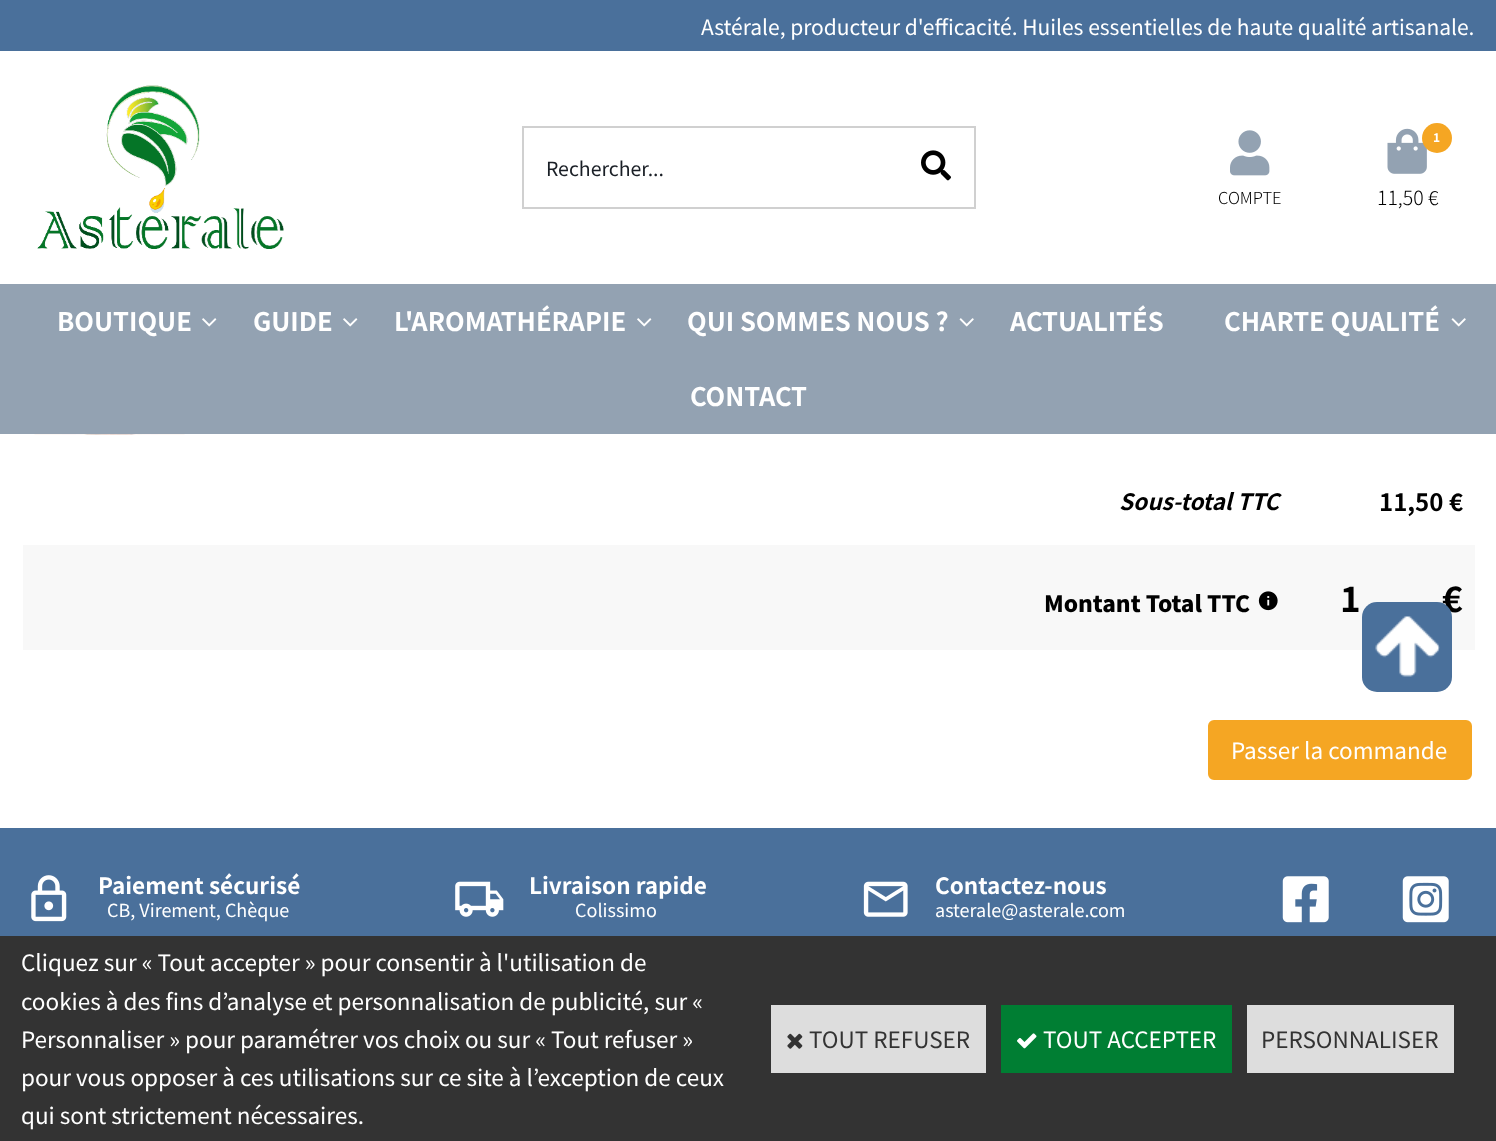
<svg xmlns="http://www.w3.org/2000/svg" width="1496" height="1141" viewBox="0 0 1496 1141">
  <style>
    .t1 { font: 21px Noto Sans JP; fill: #fff; }
    .t2 { font: 19.5px Noto Sans JP; fill: #1a1f26; }
    .t3 { font: 300 16.5px Noto Sans JP; fill: #000; }
    .t4 { font: bold 12px Noto Sans JP; fill: #fff; }
    .t5 { font: 300 19.5px Noto Sans JP; fill: #000; }
    .t6 { font: bold 25.5px Noto Sans JP; fill: #fff; }
    .t7 { font: italic bold 22.5px Noto Sans JP; fill: #000; }
    .t8 { font: bold 24px Noto Sans JP; fill: #000; }
    .t9 { font: 900 22.5px Noto Sans JP; fill: #000; }
    .t10 { font: bold 35px Noto Sans JP; fill: #000; }
    .t11 { font: 22.5px Noto Sans JP; fill: #fff; }
    .t12 { font: bold 22.5px Noto Sans JP; fill: #fff; }
    .t13 { font: 18px Noto Sans JP; fill: #fff; }
    .t14 { font: 22.5px Noto Sans JP; fill: #333; }
  </style>
  <rect width="100%" height="100%" fill="#fff"/>
  <rect x="0" y="0" width="1496" height="51" fill="#4a709b"/>
  <text x="701" y="35" class="t1">Astérale, producteur d'efficacité. Huiles essentielles de haute qualité artisanale.</text>
  <image x="37" y="85" width="247" height="164" href="images/1.png"/>
  <rect x="522" y="126" width="453" height="2" fill="#d0d0d0"/>
  <rect x="522" y="207" width="377" height="2" fill="#d0d0d0"/>
  <rect x="522" y="126" width="2" height="83" fill="#d0d0d0"/>
  <text x="546" y="176" class="t2">Rechercher...</text>
  <rect x="974" y="126" width="2" height="83" fill="#d0d0d0"/>
  <rect x="899" y="207" width="76" height="2" fill="#d0d0d0"/>
  <image x="921" y="150" width="30" height="31" href="images/2.png"/>
  <image x="1230" y="130" width="40" height="46" href="images/3.png"/>
  <text x="1218" y="204" class="t3">COMPTE</text>
  <image x="1387" y="128" width="40" height="46" href="images/4.png"/>
  <circle cx="1437" cy="138" r="15" fill="#f5a623"/>
  <text x="1433" y="142" class="t4">1</text>
  <text x="1377" y="205" class="t5">11,50 €</text>
  <rect x="0" y="284" width="1496" height="150" fill="#93a2b2"/>
  <text x="57" y="331" class="t6">BOUTIQUE</text>
  <image x="202" y="318" width="15" height="9" href="images/5.png"/>
  <text x="253" y="331" class="t6">GUIDE</text>
  <image x="343" y="318" width="15" height="9" href="images/5.png"/>
  <text x="394" y="331" class="t6">L'AROMATHÉRAPIE</text>
  <image x="637" y="318" width="15" height="9" href="images/5.png"/>
  <text x="687" y="331" class="t6">QUI SOMMES NOUS ?</text>
  <image x="959" y="318" width="15" height="9" href="images/6.png"/>
  <text x="1010" y="331" class="t6">ACTUALITÉS</text>
  <text x="1224" y="331" class="t6">CHARTE QUALITÉ</text>
  <image x="1451" y="318" width="15" height="9" href="images/6.png"/>
  <text x="690" y="406" class="t6">CONTACT</text>
  <image x="34" y="434" width="151" height="1" href="images/7.png"/>
  <text x="1119" y="510" class="t7">Sous-total TTC</text>
  <text x="1379" y="511" class="t8">11,50 €</text>
  <rect x="23" y="545" width="1452" height="105" fill="#f8f8f8"/>
  <text x="1044" y="612" class="t9">Montant Total TTC</text>
  <image x="1258" y="591" width="20" height="20" href="images/8.png"/>
  <text x="1340" y="612" class="t10">1</text>
  <text x="1442" y="612" class="t10">€</text>
  <rect x="1209" y="721" width="262" height="58" rx="5" fill="#f5a623" stroke="#f5a623" stroke-width="2"/>
  <text x="1231" y="759" class="t11">Passer la commande</text>
  <rect x="1362" y="602" width="90" height="90" rx="15" fill="#4a709b"/>
  <image x="1375" y="616" width="65" height="61" href="images/9.png"/>
  <rect x="0" y="828" width="1496" height="108" fill="#4a709b"/>
  <image x="31" y="875" width="36" height="47" href="images/10.png"/>
  <text x="98" y="894" class="t12">Paiement sécurisé</text>
  <text x="107" y="917" class="t13">CB, Virement, Chèque</text>
  <image x="455" y="881" width="49" height="36" href="images/11.png"/>
  <text x="529" y="894" class="t12">Livraison rapide</text>
  <text x="575" y="917" class="t13">Colissimo</text>
  <image x="863" y="881" width="45" height="36" href="images/12.png"/>
  <text x="935" y="894" class="t12">Contactez-nous</text>
  <text x="935" y="917" class="t13">asterale@asterale.com</text>
  <image x="1282" y="876" width="47" height="47" href="images/13.png"/>
  <image x="1402" y="876" width="47" height="47" href="images/14.png"/>
  <rect x="0" y="936" width="1496" height="205" fill="#333"/>
  <text x="21" y="971" class="t11">Cliquez sur « Tout accepter » pour consentir à l'utilisation de</text>
  <text x="21" y="1010" class="t11">cookies à des fins d’analyse et personnalisation de publicité, sur «</text>
  <text x="21" y="1048" class="t11">Personnaliser » pour paramétrer vos choix ou sur « Tout refuser »</text>
  <text x="21" y="1086" class="t11">pour vous opposer à ces utilisations sur ce site à l’exception de ceux</text>
  <text x="21" y="1124" class="t11">qui sont strictement nécessaires.</text>
  <rect x="771" y="1005" width="215" height="68" fill="#ddd"/>
  <image x="787" y="1033" width="16" height="16" href="images/15.png"/>
  <text x="809" y="1048" class="t14">TOUT REFUSER</text>
  <rect x="1001" y="1005" width="231" height="68" fill="#007e33"/>
  <image x="1017" y="1033" width="20" height="16" href="images/16.png"/>
  <text x="1043" y="1048" class="t11">TOUT ACCEPTER</text>
  <rect x="1247" y="1005" width="207" height="68" fill="#ddd"/>
  <text x="1261" y="1048" class="t14">PERSONNALISER</text>
</svg>
